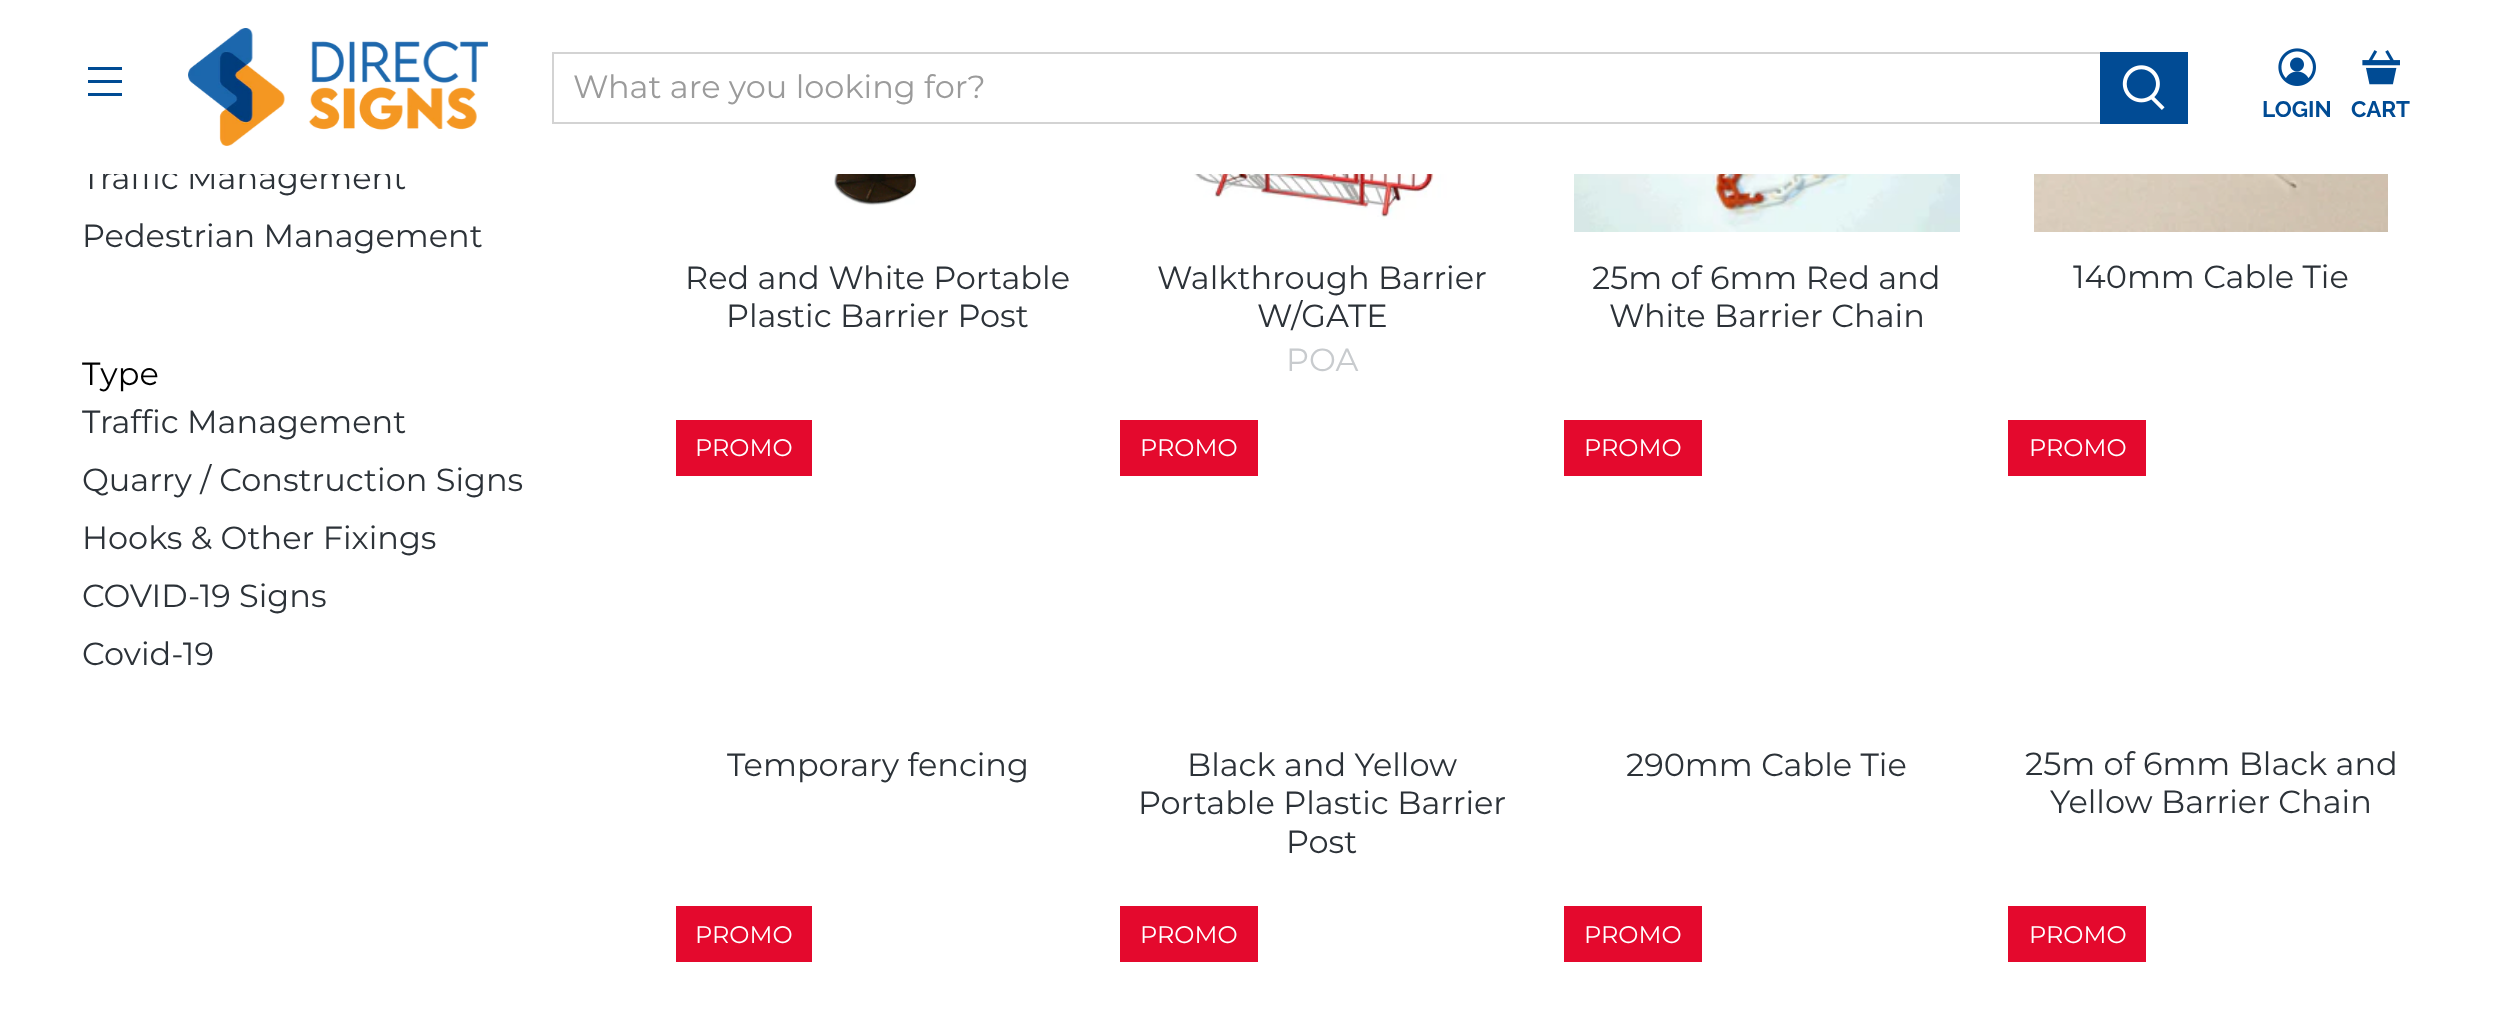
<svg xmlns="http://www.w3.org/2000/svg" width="2496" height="1010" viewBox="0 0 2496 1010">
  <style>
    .t1 { font: 32px Montserrat; fill: #2c3238; }
    .t2 { font: 32px Montserrat; fill: #9b9b9b; }
    .t3 { font: bold 22.5px Raleway; fill: #004b94; }
    .t4 { font: 32px Montserrat; fill: #000; }
    .t5 { font: 32px Montserrat; fill: #c8cbce; }
    .t6 { font: 24px Montserrat; fill: #fff; }
  </style>
  <rect width="100%" height="100%" fill="#fff"/>
  <text x="82" y="189" class="t1">Traffic Management</text>
  <rect x="82" y="165" width="323" height="9" fill="#fff"/>
  <rect x="88" y="67" width="34" height="3" fill="#004b94"/>
  <rect x="88" y="80" width="34" height="3" fill="#004b94"/>
  <rect x="88" y="93" width="34" height="3" fill="#004b94"/>
  <image x="188" y="28" width="300" height="118" href="images/1.png"/>
  <rect x="553" y="53" width="1548" height="70" fill="none" stroke="#d3d3d3" stroke-width="2"/>
  <text x="573" y="98" class="t2">What are you looking for?</text>
  <rect x="2100" y="52" width="88" height="72" fill="#014b94"/>
  <image x="2122" y="65" width="43" height="45" href="images/2.png"/>
  <image x="2278" y="48" width="38" height="38" href="images/3.png"/>
  <text x="2262" y="117" class="t3">LOGIN</text>
  <image x="2362" y="50" width="38" height="35" href="images/4.png"/>
  <text x="2351" y="117" class="t3">CART</text>
  <text x="82" y="247" class="t1">Pedestrian Management</text>
  <text x="82" y="385" class="t4">Type</text>
  <text x="82" y="433" class="t1">Traffic Management</text>
  <text x="82" y="491" class="t1">Quarry / Construction Signs</text>
  <text x="82" y="549" class="t1">Hooks &amp; Other Fixings</text>
  <text x="82" y="607" class="t1">COVID-19 Signs</text>
  <text x="82" y="665" class="t1">Covid-19</text>
  <image x="834" y="174" width="86" height="32" href="images/5.png"/>
  <text x="685" y="289" class="t1">Red and White Portable</text>
  <text x="726" y="327" class="t1">Plastic Barrier Post</text>
  <image x="1192" y="174" width="257" height="46" href="images/6.png"/>
  <text x="1157" y="289" class="t1">Walkthrough Barrier</text>
  <text x="1257" y="327" class="t1">W/GATE</text>
  <text x="1286" y="371" class="t5">POA</text>
  <image x="1574" y="174" width="386" height="58" href="images/7.png"/>
  <text x="1592" y="289" class="t1">25m of 6mm Red and</text>
  <text x="1609" y="327" class="t1">White Barrier Chain</text>
  <image x="2034" y="174" width="354" height="58" href="images/8.png"/>
  <text x="2073" y="288" class="t1">140mm Cable Tie</text>
  <rect x="676" y="420" width="136" height="56" fill="#e4092d"/>
  <text x="695" y="456" class="t6">PROMO</text>
  <text x="727" y="776" class="t1">Temporary fencing</text>
  <rect x="1120" y="420" width="138" height="56" fill="#e4092d"/>
  <text x="1140" y="456" class="t6">PROMO</text>
  <text x="1187" y="776" class="t1">Black and Yellow</text>
  <text x="1138" y="814" class="t1">Portable Plastic Barrier</text>
  <text x="1286" y="853" class="t1">Post</text>
  <rect x="1564" y="420" width="138" height="56" fill="#e4092d"/>
  <text x="1584" y="456" class="t6">PROMO</text>
  <text x="1626" y="776" class="t1">290mm Cable Tie</text>
  <rect x="2008" y="420" width="138" height="56" fill="#e4092d"/>
  <text x="2029" y="456" class="t6">PROMO</text>
  <text x="2025" y="775" class="t1">25m of 6mm Black and</text>
  <text x="2050" y="813" class="t1">Yellow Barrier Chain</text>
  <rect x="676" y="906" width="136" height="56" fill="#e4092d"/>
  <text x="695" y="943" class="t6">PROMO</text>
  <rect x="1120" y="906" width="138" height="56" fill="#e4092d"/>
  <text x="1140" y="943" class="t6">PROMO</text>
  <rect x="1564" y="906" width="138" height="56" fill="#e4092d"/>
  <text x="1584" y="943" class="t6">PROMO</text>
  <rect x="2008" y="906" width="138" height="56" fill="#e4092d"/>
  <text x="2029" y="943" class="t6">PROMO</text>
</svg>
